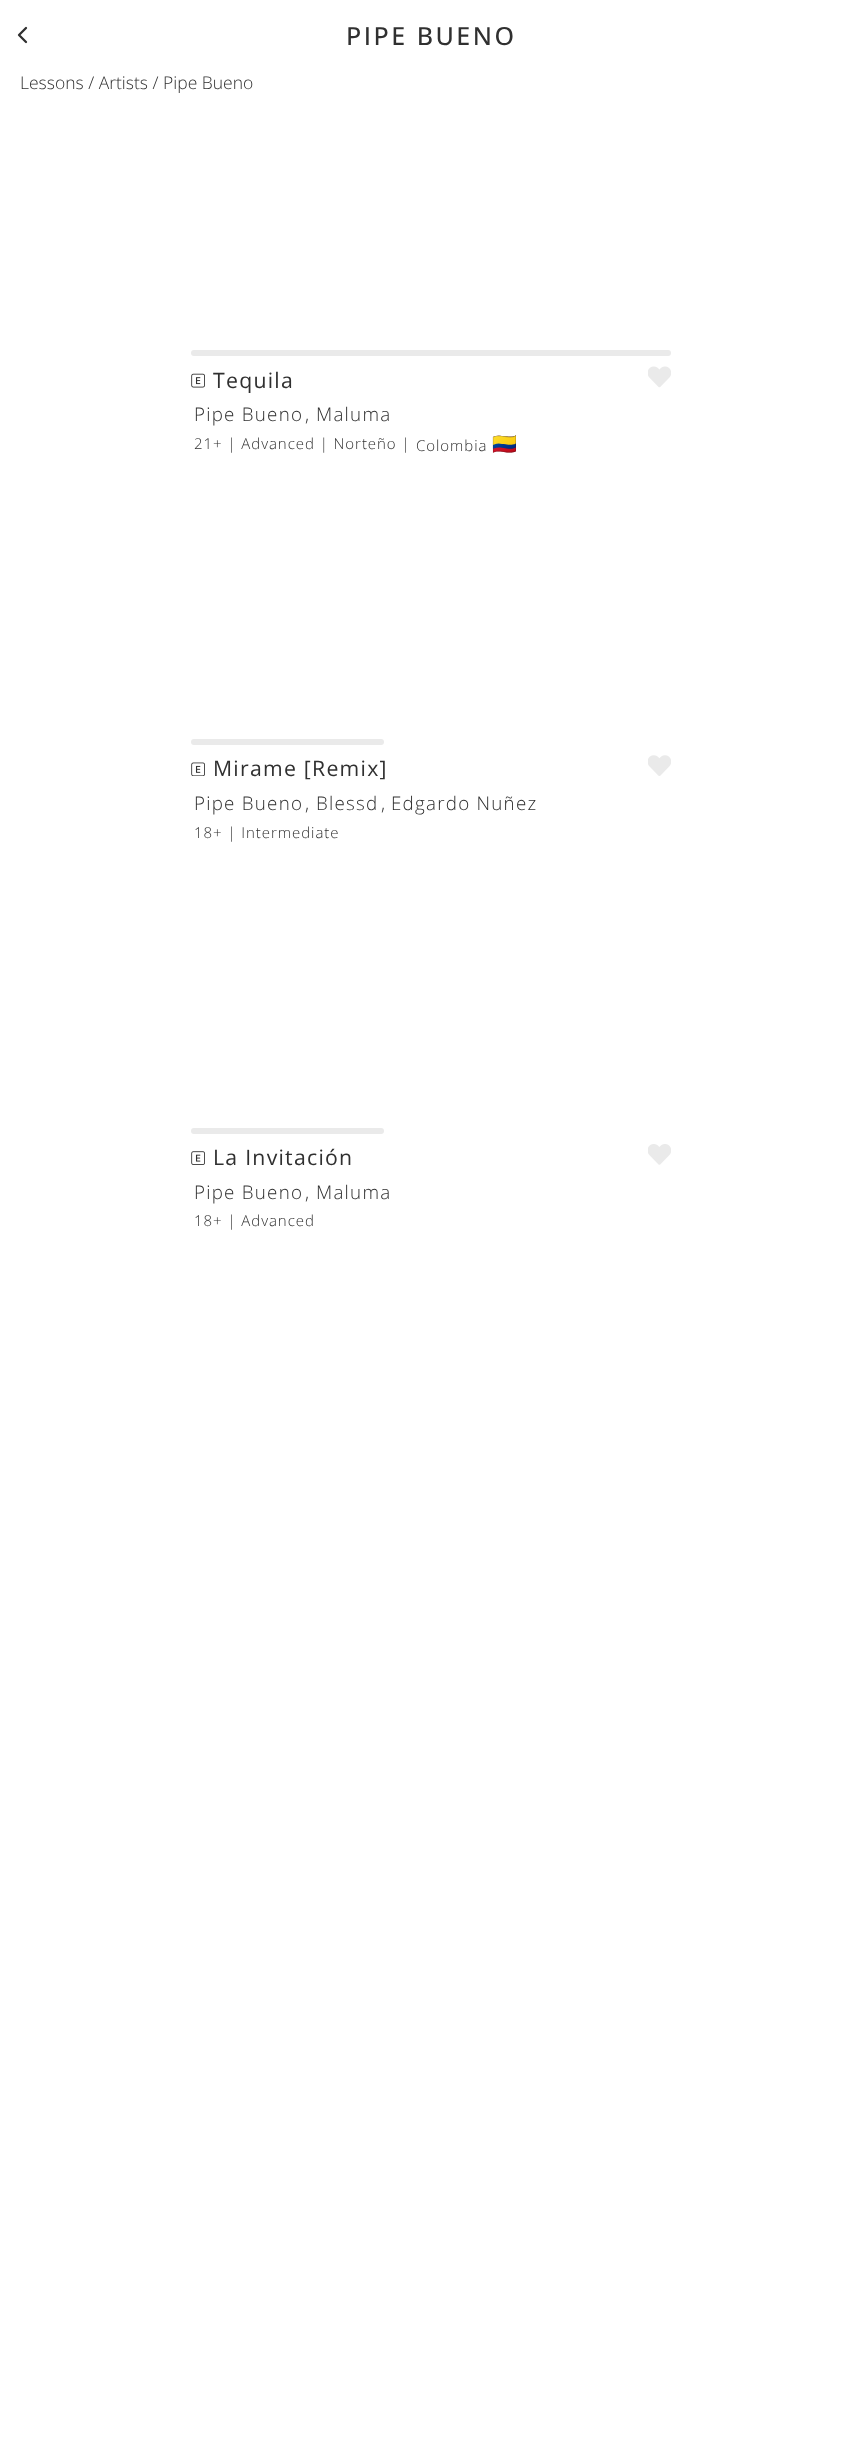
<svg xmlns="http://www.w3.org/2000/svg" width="862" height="2463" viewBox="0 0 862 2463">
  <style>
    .t1 { font: 500 25px Open Sans; letter-spacing: 2.5px; fill: #303030; }
    .t2 { font: 300 17.5px Open Sans; fill: #303030; }
    .t3 { font: 21.25px Open Sans; letter-spacing: 1.25px; fill: #303030; }
    .t4 { font: 300 18.75px Open Sans; letter-spacing: 1.25px; fill: #303030; }
    .t5 { font: 300 15px Open Sans; letter-spacing: 0.95px; fill: #303030; }
    .t6 { font: 20px Noto Color Emoji; letter-spacing: 0.95px; fill: #303030; }
  </style>
  <rect width="100%" height="100%" fill="#fff"/>
  <path d="M26 28L19 35L26 42" fill="none" stroke="#303030" stroke-width="2.3" stroke-linecap="round" stroke-linejoin="round"/>
  <text x="346" y="45" class="t1">PIPE BUENO</text>
  <text x="20" y="89" class="t2">Lessons / Artists / Pipe Bueno</text>
  <rect x="191" y="350" width="480" height="6" rx="3" fill="#eaeaea"/>
  <image x="191" y="373" width="14" height="15" href="images/1.png"/>
  <text x="213" y="388" class="t3">Tequila</text>
  <image x="648" y="366" width="23" height="22" href="images/2.png"/>
  <text x="194" y="421" class="t4">Pipe Bueno</text>
  <text x="305" y="421" class="t4">,</text>
  <text x="316" y="421" class="t4">Maluma</text>
  <text x="194" y="449" class="t5">21+ | Advanced | Norteño |</text>
  <text x="416" y="451" class="t5">Colombia</text>
  <text x="492" y="451" class="t6">🇨🇴</text>
  <rect x="191" y="739" width="193" height="6" rx="3" fill="#eaeaea"/>
  <image x="191" y="762" width="14" height="14" href="images/3.png"/>
  <text x="213" y="776" class="t3">Mirame [Remix]</text>
  <image x="648" y="755" width="23" height="21" href="images/4.png"/>
  <text x="194" y="810" class="t4">Pipe Bueno</text>
  <text x="305" y="810" class="t4">,</text>
  <text x="316" y="810" class="t4">Blessd</text>
  <text x="381" y="810" class="t4">,</text>
  <text x="391" y="810" class="t4">Edgardo Nuñez</text>
  <text x="194" y="838" class="t5">18+ | Intermediate</text>
  <rect x="191" y="1128" width="193" height="6" rx="3" fill="#eaeaea"/>
  <image x="191" y="1151" width="14" height="14" href="images/5.png"/>
  <text x="213" y="1165" class="t3">La Invitación</text>
  <image x="648" y="1144" width="23" height="21" href="images/6.png"/>
  <text x="194" y="1199" class="t4">Pipe Bueno</text>
  <text x="305" y="1199" class="t4">,</text>
  <text x="316" y="1199" class="t4">Maluma</text>
  <text x="194" y="1226" class="t5">18+ | Advanced</text>
</svg>
